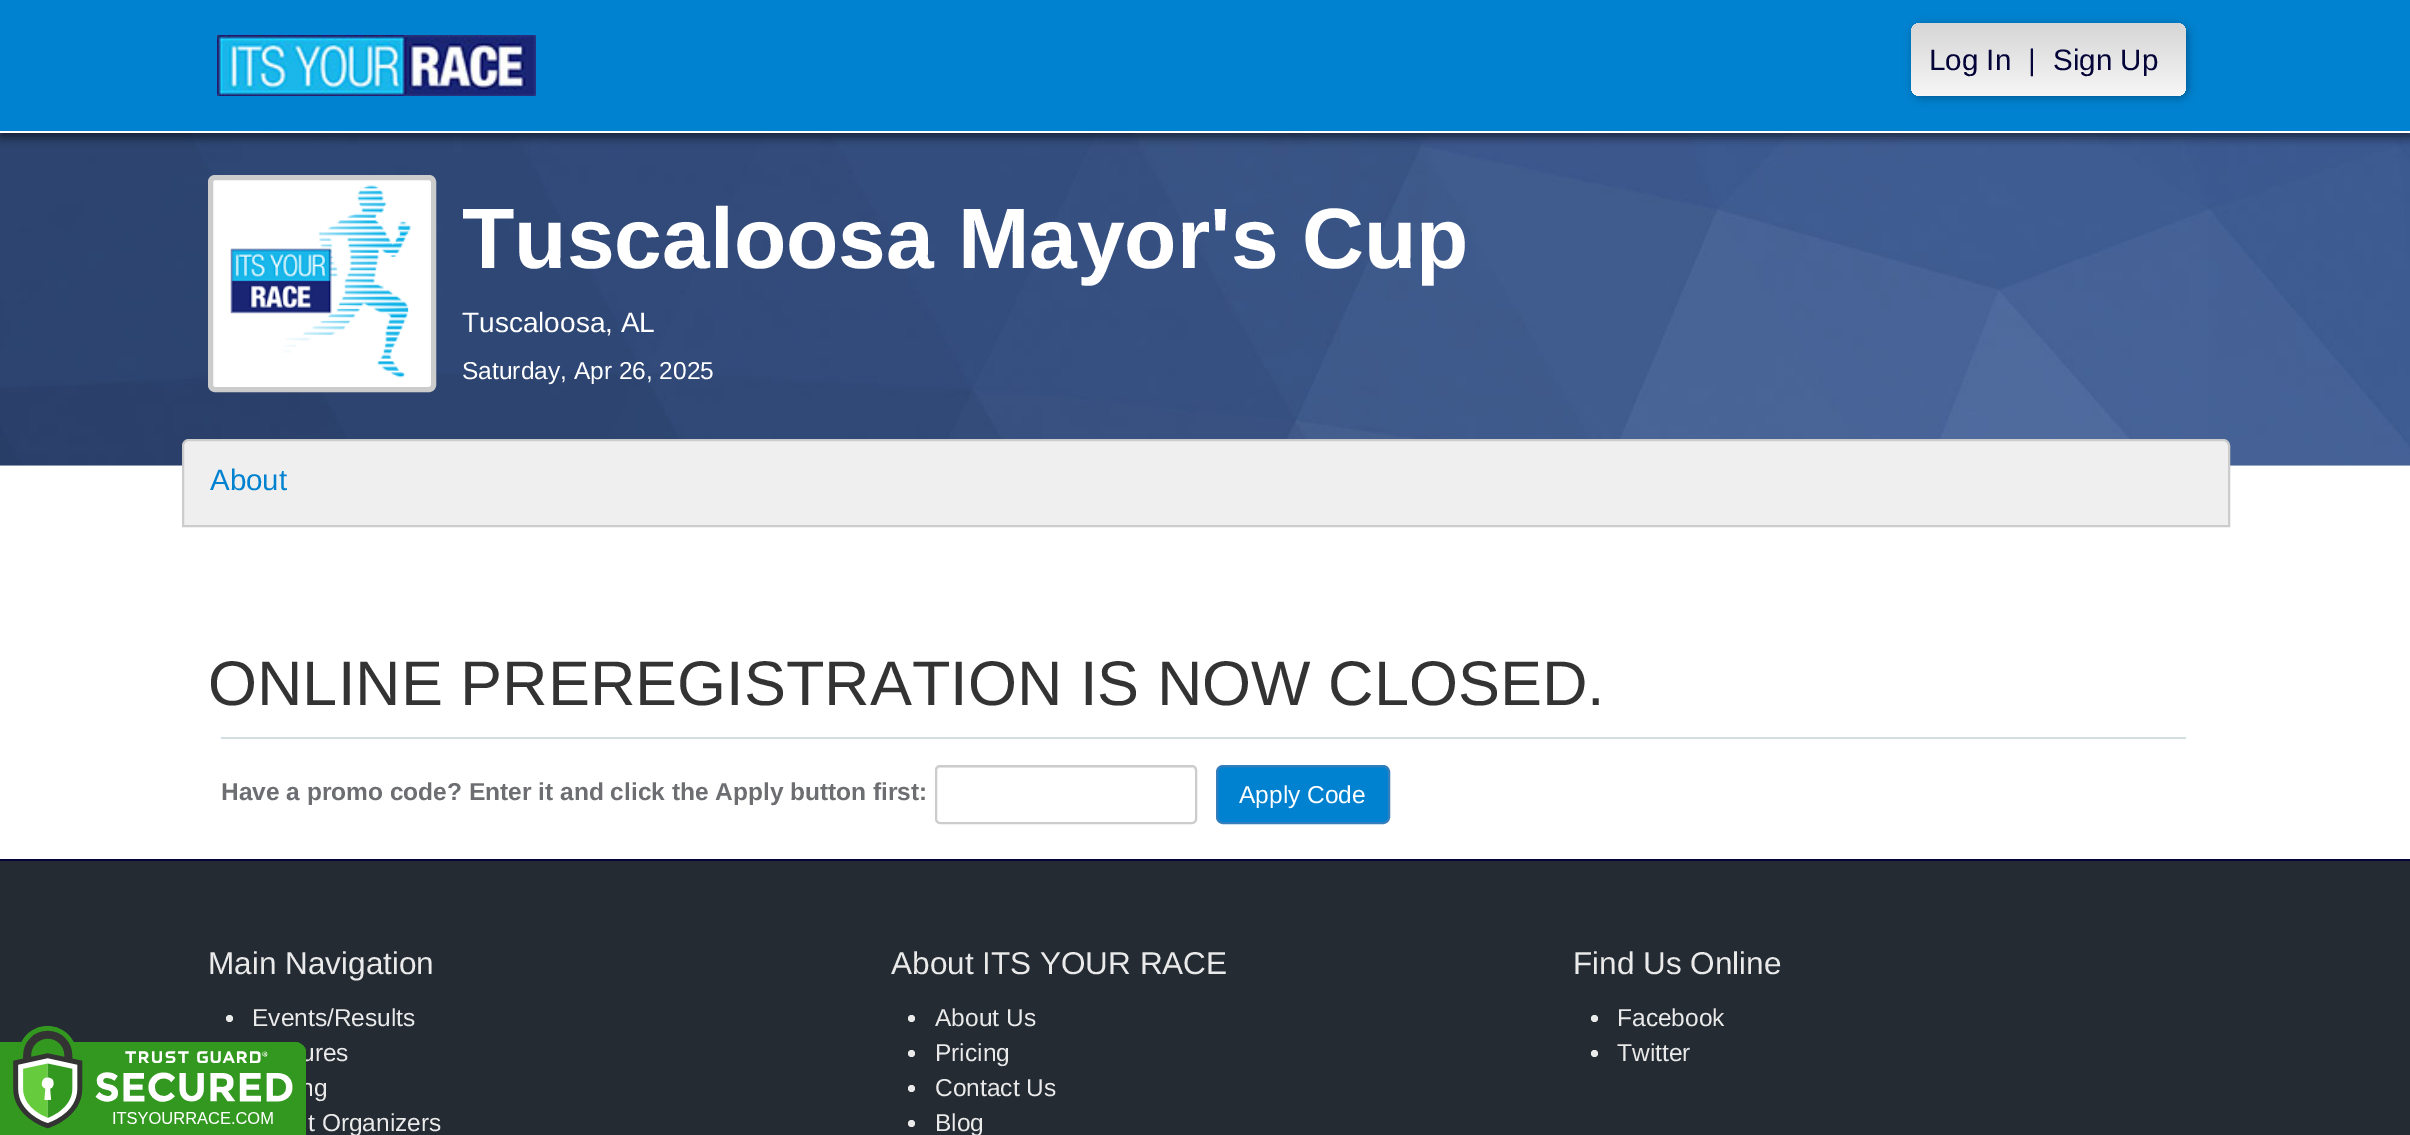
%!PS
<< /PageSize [2410 1135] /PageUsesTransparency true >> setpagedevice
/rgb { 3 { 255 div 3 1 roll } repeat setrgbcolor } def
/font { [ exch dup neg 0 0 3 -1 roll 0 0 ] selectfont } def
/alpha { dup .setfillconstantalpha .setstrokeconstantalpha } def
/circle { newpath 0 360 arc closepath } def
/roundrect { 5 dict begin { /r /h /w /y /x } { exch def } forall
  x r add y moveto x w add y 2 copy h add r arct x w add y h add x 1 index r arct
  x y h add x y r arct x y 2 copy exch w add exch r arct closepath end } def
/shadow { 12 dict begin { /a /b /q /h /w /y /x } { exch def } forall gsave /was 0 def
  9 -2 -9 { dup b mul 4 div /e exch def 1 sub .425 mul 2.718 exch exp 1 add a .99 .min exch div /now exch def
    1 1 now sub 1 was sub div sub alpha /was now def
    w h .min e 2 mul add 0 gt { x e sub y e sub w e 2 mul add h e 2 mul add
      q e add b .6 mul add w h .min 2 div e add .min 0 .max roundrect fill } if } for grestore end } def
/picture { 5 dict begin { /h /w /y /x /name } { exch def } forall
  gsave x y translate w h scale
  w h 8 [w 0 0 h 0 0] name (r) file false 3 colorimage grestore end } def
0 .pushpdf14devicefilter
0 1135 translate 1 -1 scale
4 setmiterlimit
255 255 255 rgb
0 0 2410 1135 rectfill
238 238 238 rgb
0 465 2410 1 rectfill
(img/3.rgb) 0 133 2410 333 picture
0 0 0 rgb
0 5 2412 133 0 4.5 0.5 shadow
0 130 208 rgb
0 0 2410 131 rectfill
255 255 255 rgb
0 131 2410 2 rectfill
(img/2.rgb) 217 35 319 61 picture
0 0 0 rgb
1913 25 275 73 9 4.5 0.3 shadow
gsave 1911 23 275 73 9 roundrect clip newpath
<< /ShadingType 2 /ColorSpace /DeviceRGB /Coords [2048 23 2048 96] /Extend [true true] /Function << /FunctionType 2 /Domain [0 1] /C0 [0.839 0.839 0.839] /C1 [0.965 0.965 0.965] /N 1 >> >> shfill grestore
255 255 255 rgb
210.5 177.5 223 212 4.5 roundrect gsave fill grestore
204 204 204 rgb
5 setlinewidth
stroke
(img/4.rgb) 230 185 181 193 picture
239 239 239 rgb
189 440 moveto 2223 440 lineto 2226.5 440 2229 442.5 2229 446 curveto 2229 526 lineto 183 526 lineto 183 446 lineto 183 442.5 185.5 440 189 440 curveto closepath gsave fill grestore
204 204 204 rgb
2 setlinewidth
stroke
211 222 226 rgb
221 737 1965 2 rectfill
236 236 236 rgb
940 768 moveto 1192 768 lineto 1194 768 1195 770 1195 772 curveto 1195 771 lineto 1195 769 1193 767 1191 767 curveto 940 767 lineto 938 767 936 769 936 771 curveto 936 772 lineto 936 770 938 768 940 768 curveto closepath fill
204 204 204 rgb
936 766 260 57 4 roundrect stroke
0 130 208 rgb
1217 766 172 57 6 roundrect gsave fill grestore
53 126 189 rgb
stroke
36 43 51 rgb
0 861 2410 274 rectfill
4 4 56 rgb
0 859 2410 2 rectfill
234 234 234 rgb
229.5 1018.5 3.5 circle fill
911.5 1018.5 3.5 circle fill
911.5 1053.5 3.5 circle fill
911.5 1088.5 3.5 circle fill
911.5 1123.5 3.5 circle fill
1594.5 1018.5 3.5 circle fill
1594.5 1053.5 3.5 circle fill
/LiberationSans-Regular 29.5 font
4 4 56 rgb
[
  [(Log In) 1929 70]
  [(|) 2028 70]
  [(Sign Up) 2053 70]
] { aload pop moveto show } forall
/LiberationSans-Bold 85.75 font
255 255 255 rgb
462 268 moveto (Tuscaloosa Mayor's Cup) show
/LiberationSans-Regular 28 font
462 332 moveto (Tuscaloosa, AL) show
/LiberationSans-Regular 24.5 font
462 379 moveto (Saturday, Apr 26, 2025) show
/LiberationSans-Regular 29.5 font
0 130 208 rgb
210 490 moveto (About) show
/LiberationSans-Regular 63 font
51 51 51 rgb
208 705 moveto (ONLINE PREREGISTRATION IS NOW CLOSED.) show
/LiberationSans-Bold 24.5 font
109 110 113 rgb
221 800 moveto (Have a promo code? Enter it and click the Apply button first:) show
/LiberationSans-Regular 24.5 font
255 255 255 rgb
1239 803 moveto (Apply Code) show
/LiberationSans-Regular 31.5 font
234 234 234 rgb
208 974 moveto (Main Navigation) show
/LiberationSans-Regular 24.5 font
[
  [(Events/Results) 252 1026]
  [(ures) 301 1061]
  [(ng) 300 1096]
] { aload pop moveto show } forall
(img/1.rgb) 0 1026 306 109 picture
308 1131 moveto (t Organizers) show
/LiberationSans-Regular 31.5 font
891 974 moveto (About ITS YOUR RACE) show
/LiberationSans-Regular 24.5 font
[
  [(About Us) 935 1026]
  [(Pricing) 935 1061]
  [(Contact Us) 935 1096]
  [(Blog) 935 1131]
] { aload pop moveto show } forall
/LiberationSans-Regular 31.5 font
1573 974 moveto (Find Us Online) show
/LiberationSans-Regular 24.5 font
1617 1026 moveto (Facebook) show
1617 1061 moveto (Twitter) show
.poppdf14devicefilter showpage
